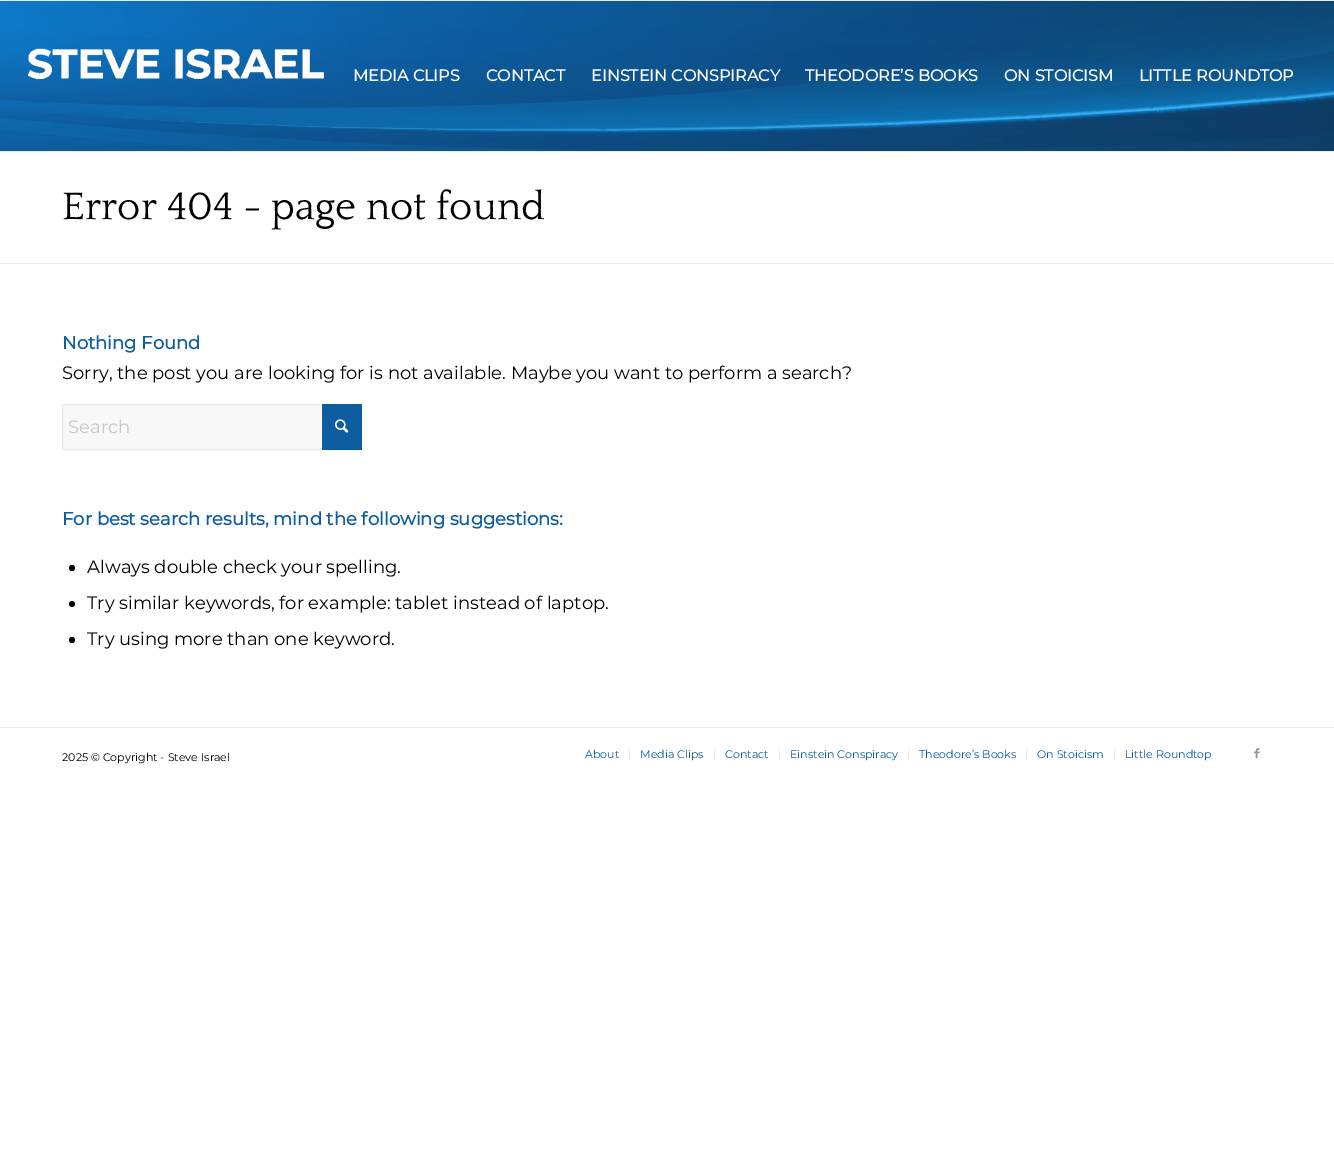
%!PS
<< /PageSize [1334 1163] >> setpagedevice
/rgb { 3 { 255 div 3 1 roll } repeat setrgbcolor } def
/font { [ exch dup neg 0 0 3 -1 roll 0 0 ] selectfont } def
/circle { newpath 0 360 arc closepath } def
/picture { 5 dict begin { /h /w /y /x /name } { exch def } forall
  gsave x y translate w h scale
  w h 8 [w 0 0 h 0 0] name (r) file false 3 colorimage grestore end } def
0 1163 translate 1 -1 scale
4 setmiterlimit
255 255 255 rgb
0 0 1334 1163 rectfill
(img/1.rgb) 0 1 1334 150 picture
235 235 235 rgb
0 0 1334 1 rectfill
0 151 1334 1 rectfill
(img/2.rgb) 28 48 296 31 picture
0 263 1334 1 rectfill
248 248 248 rgb
63 405 259 44 rectfill
235 235 235 rgb
62.5 404.5 299 45 rectstroke
15 93 161 rgb
322 404 40 46 rectfill
(img/3.rgb) 335 419 14 14 picture
0 0 0 rgb
72 568 3 circle fill
72 604 3 circle fill
72 640 3 circle fill
[
  [0 727 1334 1 235 235 235]
  [629 749 1 10 235 235 235]
  [714 749 1 10 235 235 235]
  [779 749 1 10 235 235 235]
  [908 749 1 10 235 235 235]
  [1026 749 1 10 235 235 235]
  [1114 749 1 10 235 235 235]
] { aload pop rgb rectfill } forall
(img/4.rgb) 1254 748 6 11 picture
/Montserrat-Bold 16 font
255 255 255 rgb
[
  [(MEDIA CLIPS) 353 81]
  [(CONTACT) 486 81]
  [(EINSTEIN CONSPIRACY) 591 81]
  [(THEODORE’S BOOKS) 805 81]
  [(ON STOICISM) 1004 81]
  [(LITTLE ROUNDTOP) 1139 81]
] { aload pop moveto show } forall
/Quattrocento-Regular 40 font
0 0 0 rgb
62 219 moveto (Error 404 - page not found) show
/Montserrat-Bold 18 font
15 93 161 rgb
62 349 moveto (Nothing Found) show
/Montserrat-Thin 18 font
0 0 0 rgb
62 379 moveto (Sorry, the post you are looking for is not available. Maybe you want to perform a search?) show
199 199 199 rgb
68 433 moveto (Search) show
/Montserrat-Bold 18 font
15 93 161 rgb
62 525 moveto (For best search results, mind the following suggestions:) show
/Montserrat-Thin 18 font
0 0 0 rgb
[
  [(Always double check your spelling.) 87 573]
  [(Try similar keywords, for example: tablet instead of laptop.) 87 609]
  [(Try using more than one keyword.) 87 645]
] { aload pop moveto show } forall
/Montserrat-Thin 11 font
62 761 moveto (2025 © Copyright - Steve Israel) show
15 93 161 rgb
[
  [(About) 585 758]
  [(Media Clips) 640 758]
  [(Contact) 725 758]
  [(Einstein Conspiracy) 790 758]
  [(Theodore’s Books) 919 758]
  [(On Stoicism) 1037 758]
  [(Little Roundtop) 1125 758]
] { aload pop moveto show } forall
showpage
